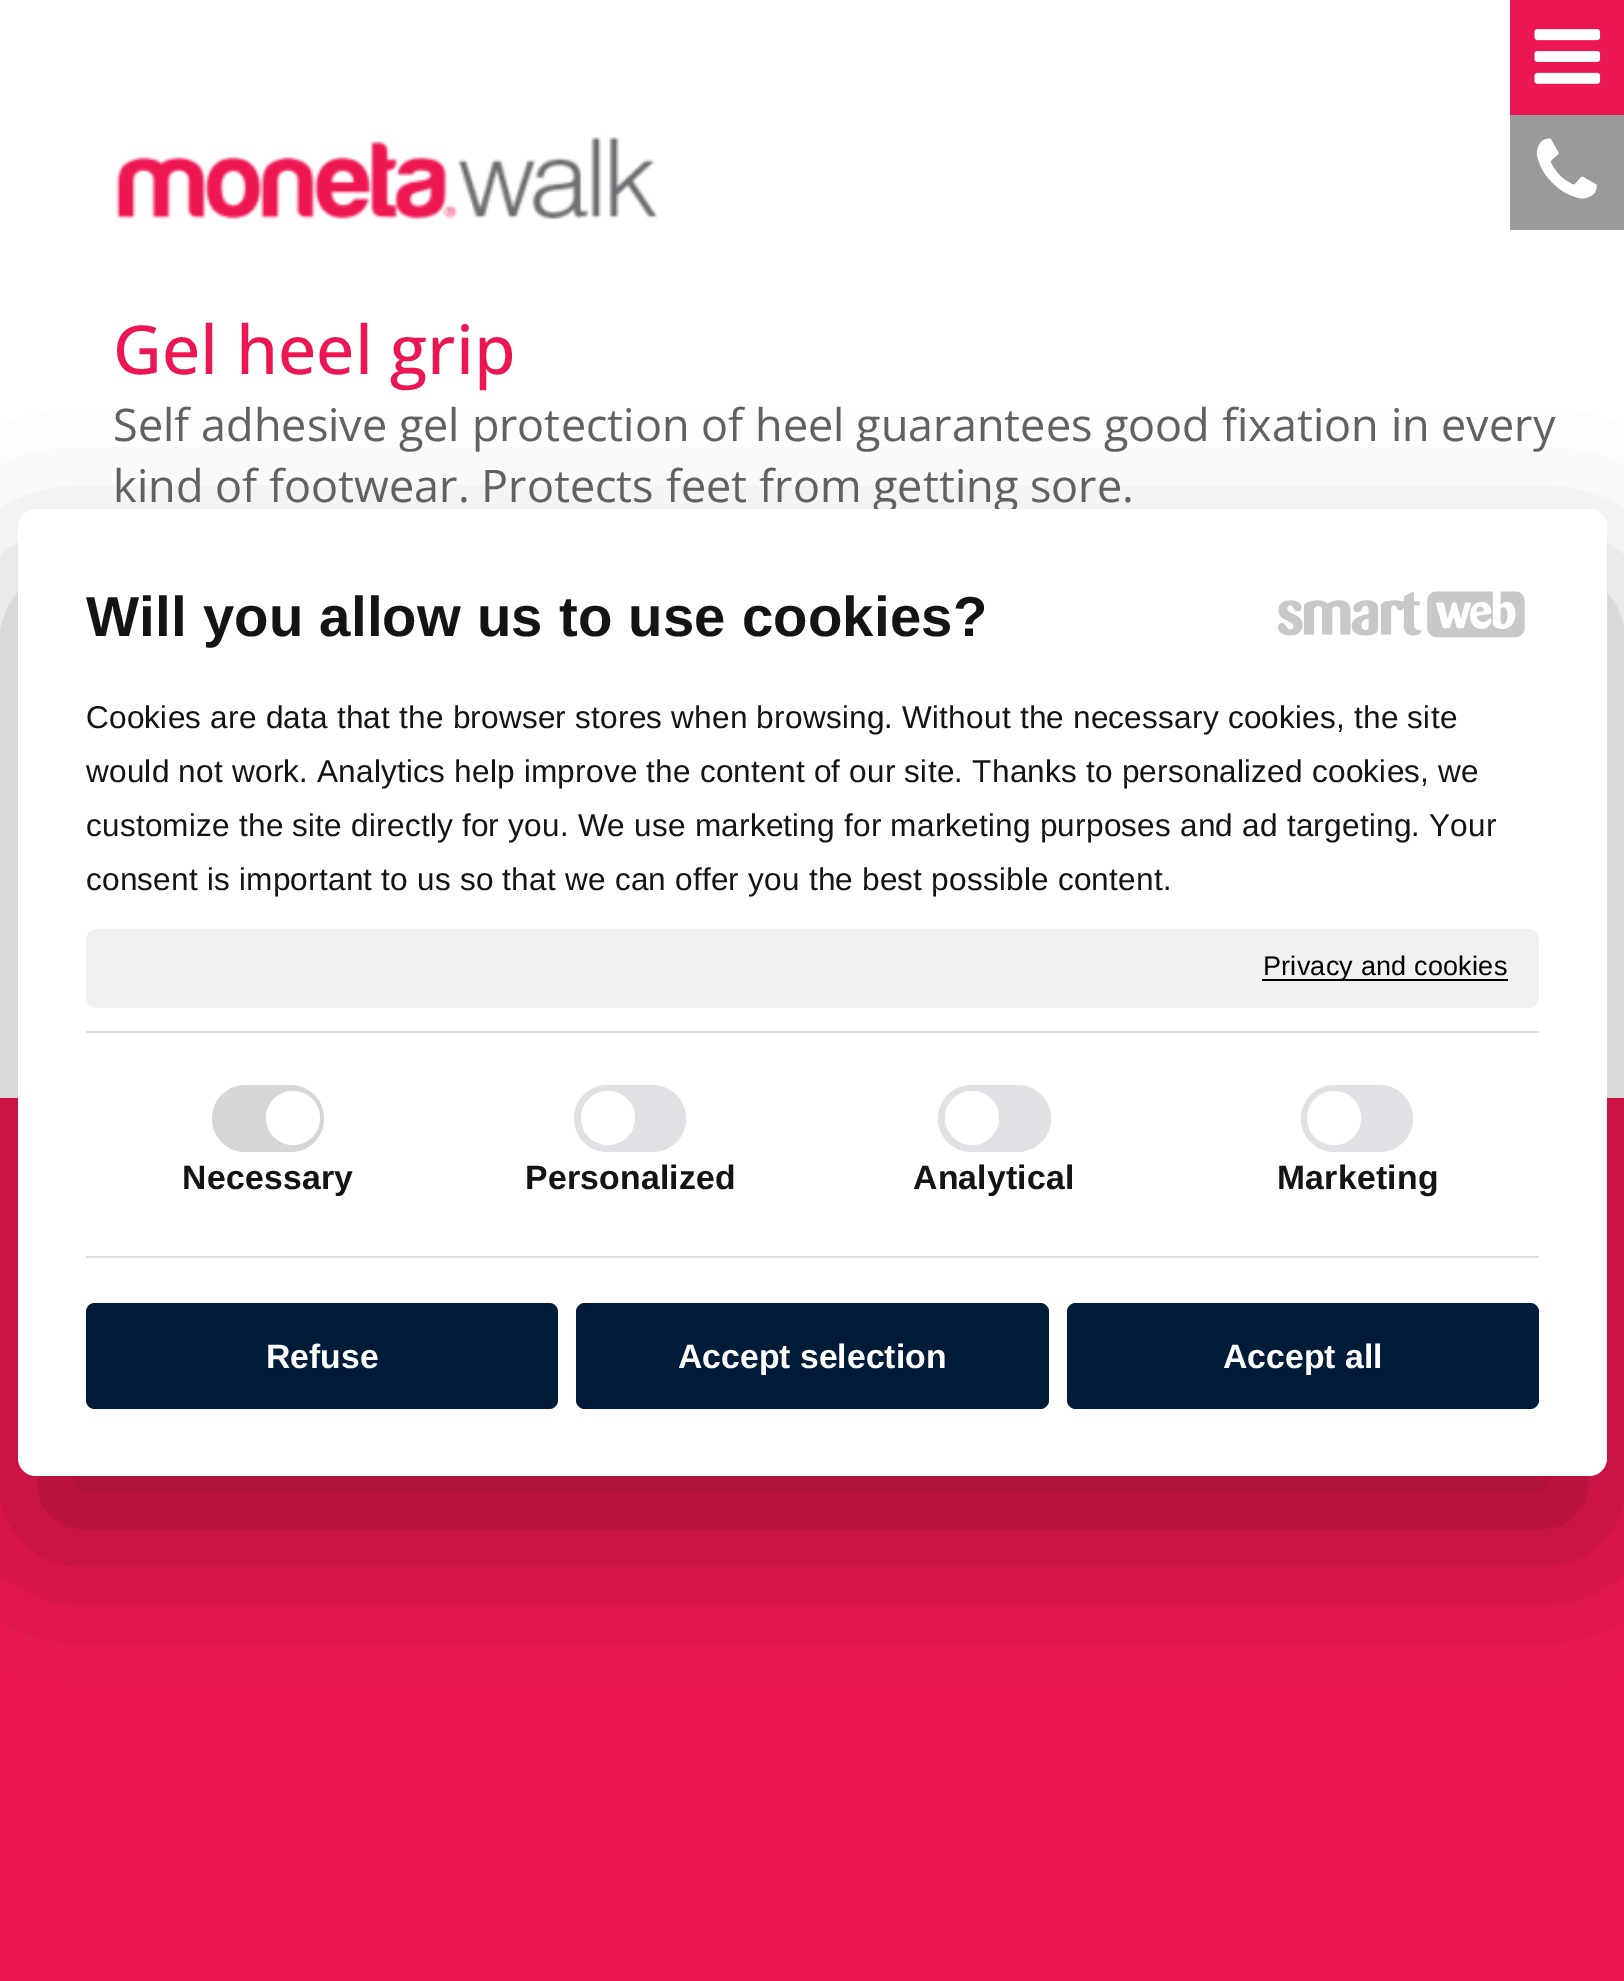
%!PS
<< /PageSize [1624 1981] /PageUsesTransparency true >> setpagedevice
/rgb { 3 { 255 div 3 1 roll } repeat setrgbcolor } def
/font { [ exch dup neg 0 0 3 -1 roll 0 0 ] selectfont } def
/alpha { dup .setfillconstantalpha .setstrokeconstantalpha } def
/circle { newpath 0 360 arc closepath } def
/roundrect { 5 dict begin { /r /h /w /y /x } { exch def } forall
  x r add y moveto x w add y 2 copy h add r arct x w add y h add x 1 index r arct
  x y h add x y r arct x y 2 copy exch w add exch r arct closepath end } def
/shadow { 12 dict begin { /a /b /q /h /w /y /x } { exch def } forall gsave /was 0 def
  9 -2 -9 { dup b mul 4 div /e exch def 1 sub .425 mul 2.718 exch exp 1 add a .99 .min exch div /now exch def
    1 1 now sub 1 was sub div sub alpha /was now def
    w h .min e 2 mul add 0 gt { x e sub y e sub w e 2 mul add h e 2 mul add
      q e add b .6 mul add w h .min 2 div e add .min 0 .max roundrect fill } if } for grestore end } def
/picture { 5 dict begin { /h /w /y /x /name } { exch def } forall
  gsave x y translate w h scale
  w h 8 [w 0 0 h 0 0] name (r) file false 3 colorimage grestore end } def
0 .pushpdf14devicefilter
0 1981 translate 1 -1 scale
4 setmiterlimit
236 23 82 rgb
0 0 1624 1981 rectfill
255 255 255 rgb
0 0 1624 1098 rectfill
236 23 82 rgb
1510 0 114 115 rectfill
(img/1.rgb) 1534 29 67 55 picture
154 154 154 rgb
1510 115 114 115 rectfill
(img/2.rgb) 1536 138 61 61 picture
(img/3.rgb) 116 136 542 85 picture
0 0 0 rgb
18 581 1589 967 18 76.5 0.3 shadow
/OpenSans-Medium 67.5 font
236 23 82 rgb
113 374 moveto (Gel heel grip) show
/OpenSans-Regular 45 font
97 97 97 rgb
113 441 moveto (Self adhesive gel protection of heel guarantees good fixation in every) show
113 502 moveto (kind of footwear. Protects feet from getting sore.) show
255 255 255 rgb
18 509 1589 967 18 roundrect fill
/LiberationSans-Bold 56.25 font
20 20 20 rgb
86 636 moveto 0.23 0 (Will you allow us to use cookies?) ashow
(img/4.rgb) 1277 592 144 44 picture
(img/5.rgb) 1427 591 98 47 picture
/LiberationSans-Regular 31.5 font
86 728 moveto 0.23 0 (Cookies are data that the browser stores when browsing. Without the necessary cookies, the site) ashow
86 782 moveto 0.23 0 (would not work. Analytics help improve the content of our site. Thanks to personalized cookies, we) ashow
86 836 moveto 0.23 0 (customize the site directly for you. We use marketing for marketing purposes and ad targeting. Your) ashow
86 890 moveto 0.23 0 (consent is important to us so that we can offer you the best possible content.) ashow
241 241 241 rgb
86 929 1453 79 11 roundrect fill
0 0 0 rgb
1262 979 246 2 rectfill
/LiberationSans-Regular 27 font
1263 975 moveto 0.23 0 (Privacy and cookies) ashow
221 221 221 rgb
86 1031 1453 2 rectfill
86 1256 1453 2 rectfill
214 214 214 rgb
212 1085 112 67 33.5 roundrect fill
255 255 255 rgb
293 1118 27 circle fill
/LiberationSans-Bold 33.75 font
20 20 20 rgb
182 1189 moveto 0.23 0 (Necessary) ashow
223 225 228 rgb
574 1085 112 67 33.5 roundrect fill
255 255 255 rgb
608 1118 27 circle fill
20 20 20 rgb
525 1189 moveto 0.23 0 (Personalized) ashow
223 225 228 rgb
938 1085 113 67 33.5 roundrect fill
255 255 255 rgb
972 1118 27 circle fill
20 20 20 rgb
913 1189 moveto 0.23 0 (Analytical) ashow
223 225 228 rgb
1301 1085 112 67 33.5 roundrect fill
255 255 255 rgb
1334 1118 27 circle fill
20 20 20 rgb
1277 1189 moveto 0.23 0 (Marketing) ashow
1 28 56 rgb
86 1303 472 106 9 roundrect fill
255 255 255 rgb
266 1368 moveto (Refuse) show
1 28 56 rgb
576 1303 473 106 9 roundrect fill
255 255 255 rgb
678 1368 moveto (Accept selection) show
1 28 56 rgb
1067 1303 472 106 9 roundrect fill
255 255 255 rgb
1223 1368 moveto (Accept all) show
.poppdf14devicefilter showpage
